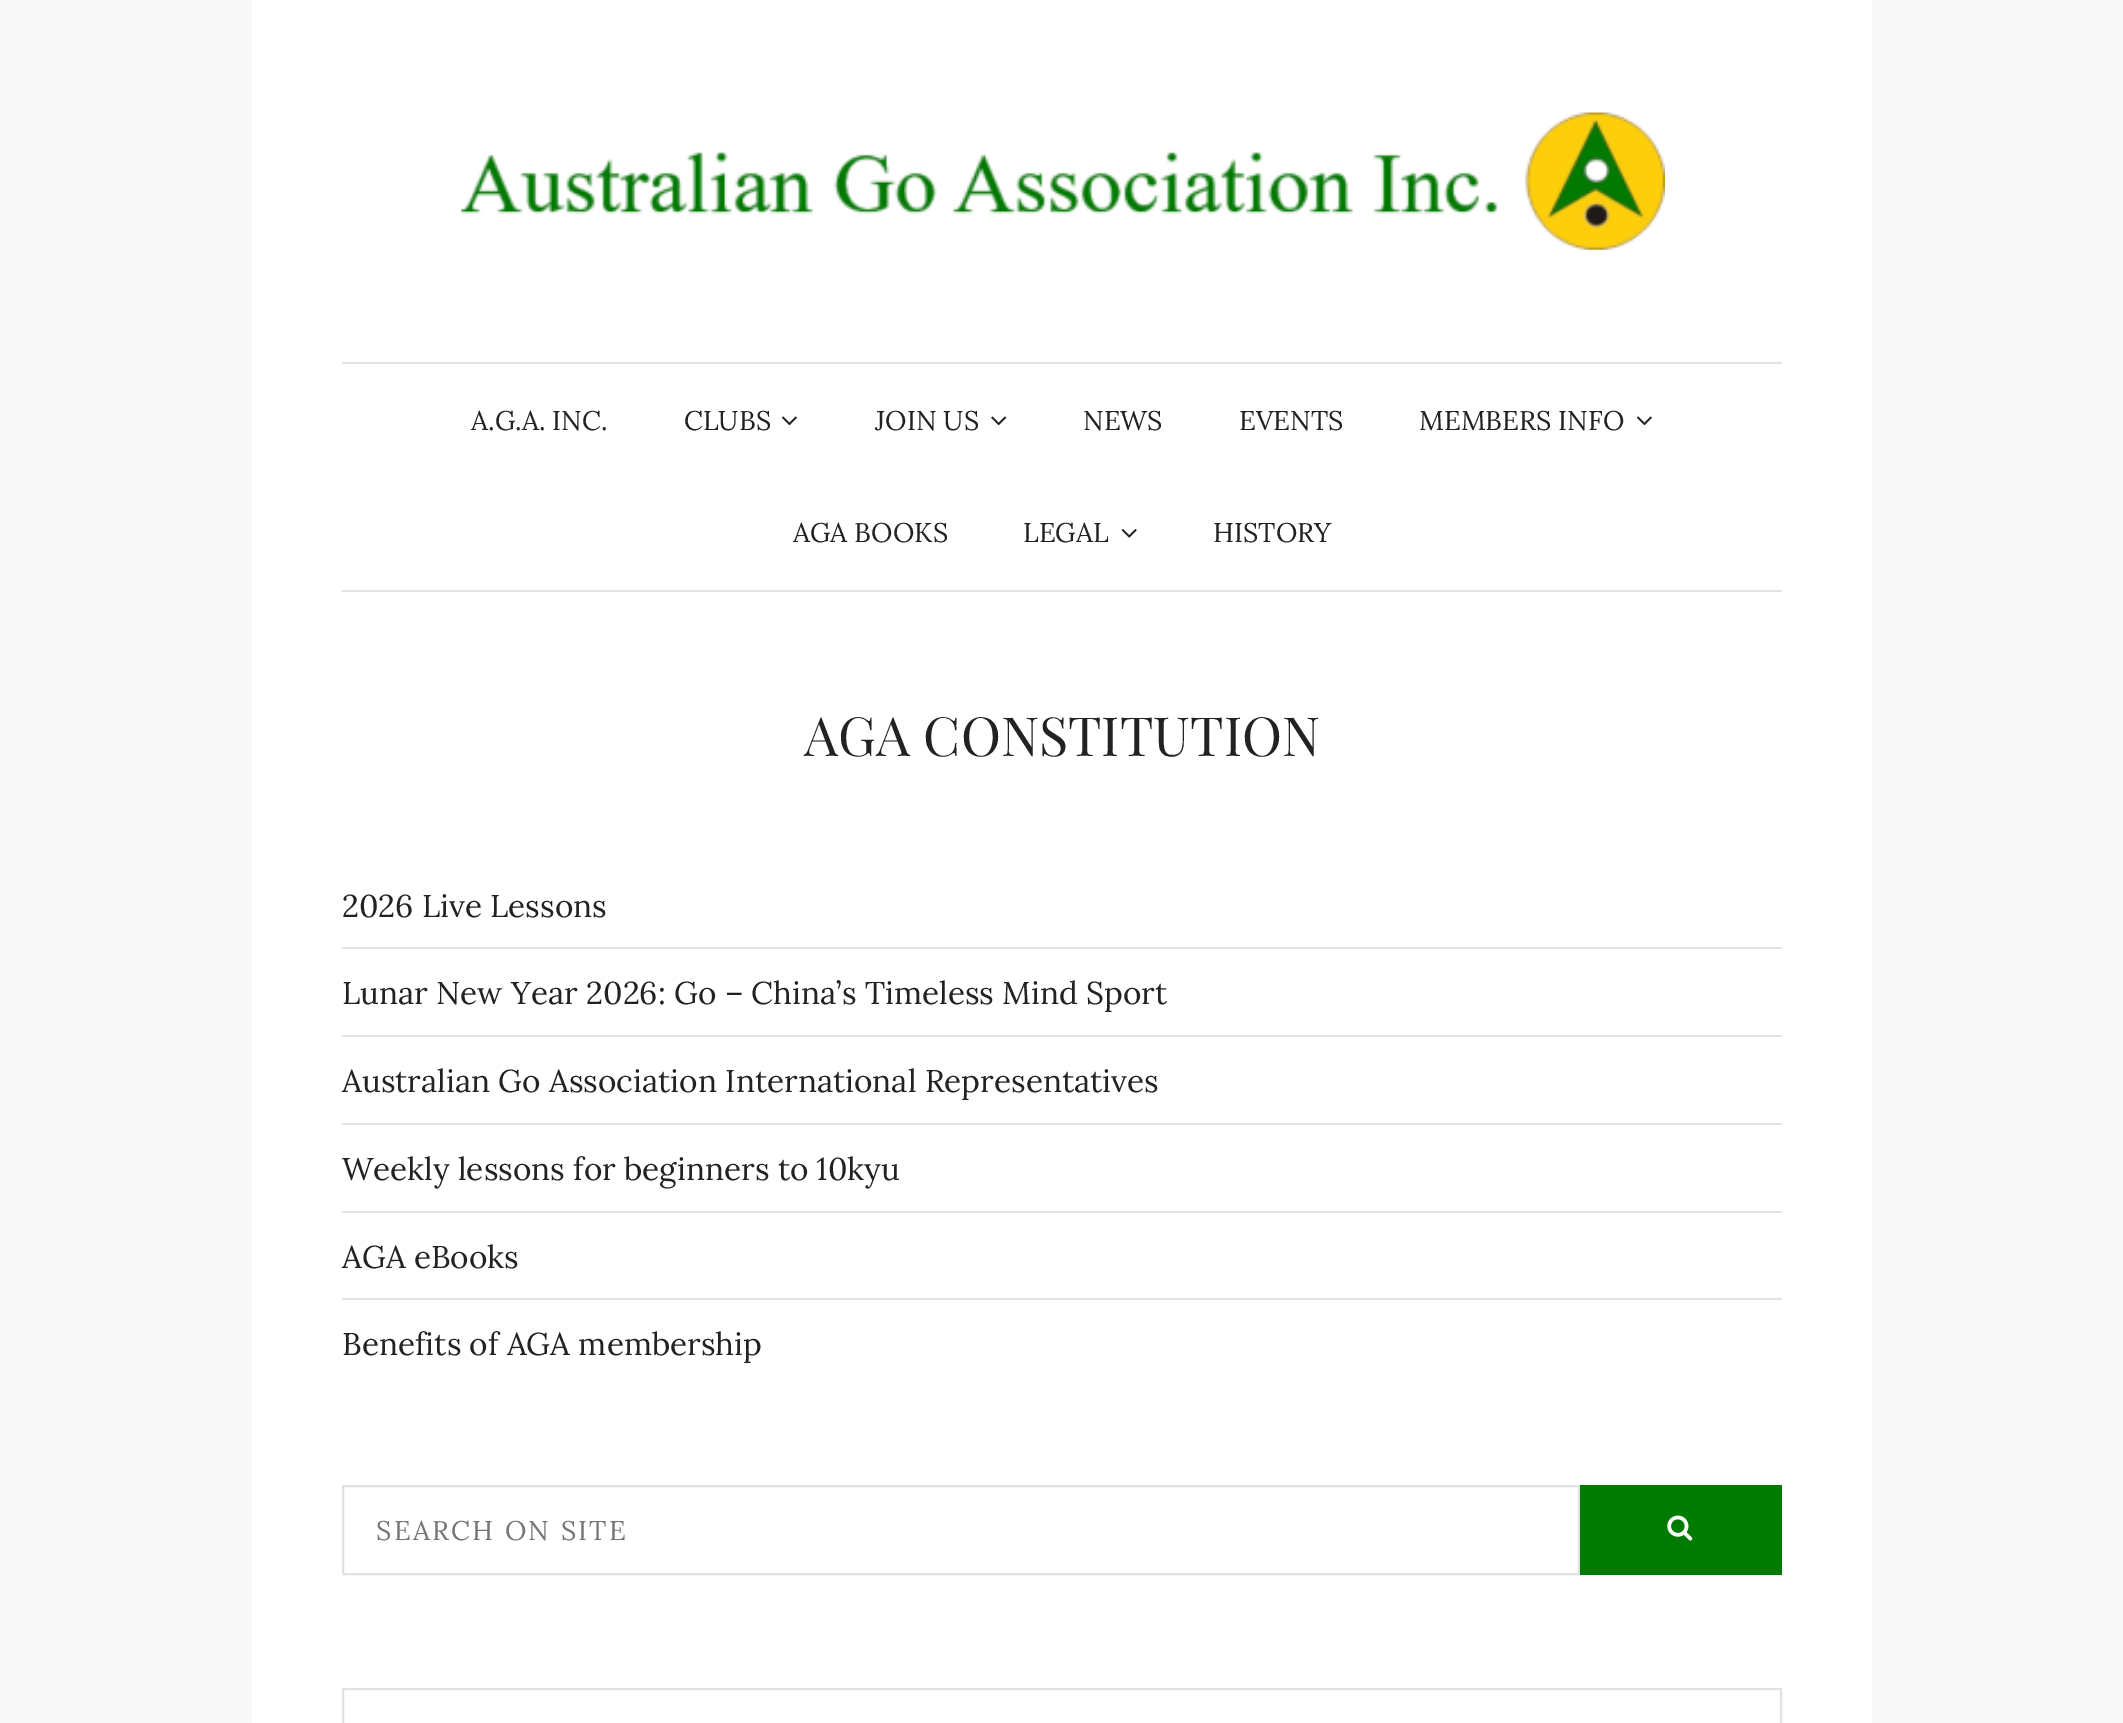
%!PS
<< /PageSize [2123 1723] >> setpagedevice
/rgb { 3 { 255 div 3 1 roll } repeat setrgbcolor } def
/font { [ exch dup neg 0 0 3 -1 roll 0 0 ] selectfont } def
/picture { 5 dict begin { /h /w /y /x /name } { exch def } forall
  gsave x y translate w h scale
  w h 8 [w 0 0 h 0 0] name (r) file false 3 colorimage grestore end } def
0 1723 translate 1 -1 scale
4 setmiterlimit
248 248 248 rgb
0 0 2123 1723 rectfill
255 255 255 rgb
252 0 1620 1723 rectfill
(img/1.rgb) 461 112 1204 138 picture
226 226 226 rgb
342 362 1440 2 rectfill
342 590 1440 2 rectfill
(img/2.rgb) 782 416 15 10 picture
(img/3.rgb) 991 416 16 10 picture
(img/2.rgb) 1637 416 15 10 picture
(img/4.rgb) 1121 529 16 9 picture
[
  [342 947 1440 2 226 226 226]
  [342 1035 1440 2 226 226 226]
  [342 1123 1440 2 226 226 226]
  [342 1211 1440 2 226 226 226]
  [342 1298 1440 2 226 226 226]
] { aload pop rgb rectfill } forall
2 setlinewidth
343 1486 1236 88 rectstroke
0 122 0 rgb
1580 1485 202 90 rectfill
(img/5.rgb) 1667 1515 26 26 picture
226 226 226 rgb
343 1689 1438 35 rectstroke
/Lora-Regular 27 font
34 34 34 rgb
[
  [(A.G.A. INC.) 471 430]
  [(CLUBS) 684 430]
  [(JOIN US) 875 430]
  [(NEWS) 1083 430]
  [(EVENTS) 1239 430]
  [(MEMBERS INFO) 1419 430]
  [(AGA BOOKS) 793 542]
  [(LEGAL) 1023 542]
  [(HISTORY) 1213 542]
] { aload pop moveto show } forall
/PlayfairDisplay-Regular 54 font
804 756 moveto (AGA CONSTITUTION) show
/Lora-Regular 31.5 font
[
  [(2026 Live Lessons) 342 917]
  [(Lunar New Year 2026: Go – China’s Timeless Mind Sport) 342 1004]
  [(Australian Go Association International Representatives) 342 1092]
  [(Weekly lessons for beginners to 10kyu) 342 1180]
  [(AGA eBooks) 342 1268]
  [(Benefits of AGA membership) 342 1355]
] { aload pop moveto show } forall
/Lora-Regular 27 font
117 117 117 rgb
376 1540 moveto 2.25 0 (SEARCH ON SITE) ashow
showpage
